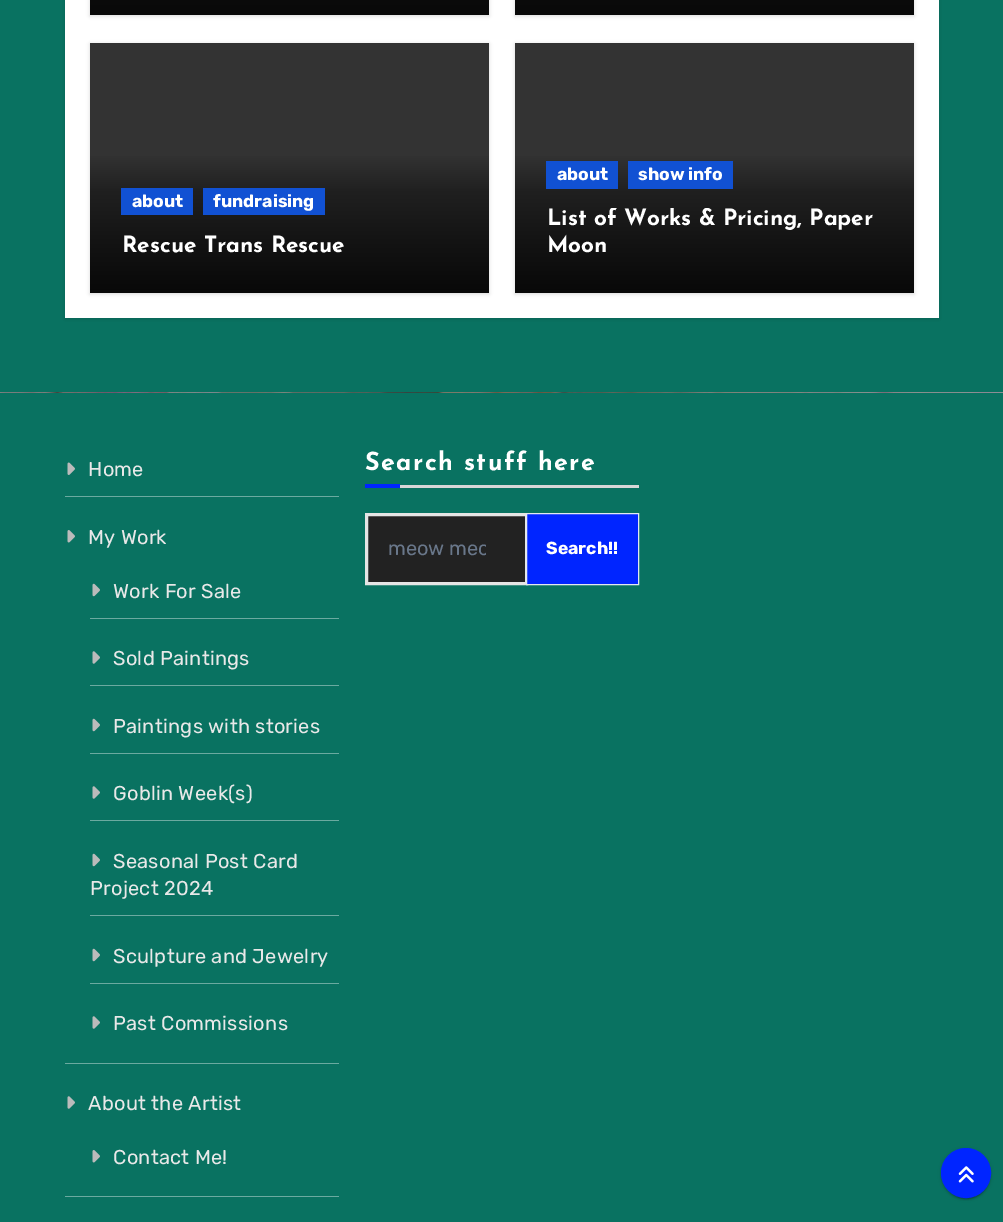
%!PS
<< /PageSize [1003 1222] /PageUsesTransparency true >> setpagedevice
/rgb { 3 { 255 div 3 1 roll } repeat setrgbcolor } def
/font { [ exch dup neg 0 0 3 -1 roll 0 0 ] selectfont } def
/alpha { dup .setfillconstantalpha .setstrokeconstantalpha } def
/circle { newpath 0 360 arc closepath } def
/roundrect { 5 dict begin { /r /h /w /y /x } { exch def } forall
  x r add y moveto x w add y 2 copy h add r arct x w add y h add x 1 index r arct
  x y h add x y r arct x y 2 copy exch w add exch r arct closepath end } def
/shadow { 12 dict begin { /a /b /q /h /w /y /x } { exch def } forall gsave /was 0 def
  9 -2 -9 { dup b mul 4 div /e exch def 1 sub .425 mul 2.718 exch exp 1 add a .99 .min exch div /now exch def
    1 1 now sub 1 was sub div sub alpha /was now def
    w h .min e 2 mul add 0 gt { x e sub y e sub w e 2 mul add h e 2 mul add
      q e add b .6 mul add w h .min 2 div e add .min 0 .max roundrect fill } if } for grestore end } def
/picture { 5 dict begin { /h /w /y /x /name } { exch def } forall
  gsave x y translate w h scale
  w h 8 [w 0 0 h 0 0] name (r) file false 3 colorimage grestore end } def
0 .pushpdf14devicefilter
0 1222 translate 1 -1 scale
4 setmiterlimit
9 114 97 rgb
0 0 1003 1222 rectfill
0 0 0 rgb
65 -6 874 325 0 2 0.15 shadow
255 255 255 rgb
65 0 874 318 rectfill
0 0 0 rgb
90 -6 399 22 0 2 0.15 shadow
gsave 90 0 moveto 489 0 lineto 489 15 lineto 90 15 lineto closepath clip newpath
<< /ShadingType 2 /ColorSpace /DeviceRGB /Coords [289 -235 289 15] /Extend [true true] /Function << /FunctionType 3 /Domain [0 1] /Functions [<< /FunctionType 2 /Domain [0 1] /C0 [0.2 0.2 0.2] /C1 [0.2 0.2 0.2] /N 1 >> << /FunctionType 2 /Domain [0 1] /C0 [0.2 0.2 0.2] /C1 [0.122 0.122 0.122] /N 1 >> << /FunctionType 2 /Domain [0 1] /C0 [0.122 0.122 0.122] /C1 [0.031 0.031 0.031] /N 1 >>] /Bounds [0.45 0.6] /Encode [0 1 0 1 0 1] >> >> shfill grestore
515 -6 399 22 0 2 0.15 shadow
gsave 515 0 moveto 914 0 lineto 914 15 lineto 515 15 lineto closepath clip newpath
<< /ShadingType 2 /ColorSpace /DeviceRGB /Coords [714 -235 714 15] /Extend [true true] /Function << /FunctionType 3 /Domain [0 1] /Functions [<< /FunctionType 2 /Domain [0 1] /C0 [0.2 0.2 0.2] /C1 [0.2 0.2 0.2] /N 1 >> << /FunctionType 2 /Domain [0 1] /C0 [0.2 0.2 0.2] /C1 [0.122 0.122 0.122] /N 1 >> << /FunctionType 2 /Domain [0 1] /C0 [0.122 0.122 0.122] /C1 [0.031 0.031 0.031] /N 1 >>] /Bounds [0.45 0.6] /Encode [0 1 0 1 0 1] >> >> shfill grestore
90 44 399 250 0 2 0.15 shadow
gsave 90 43 moveto 489 43 lineto 489 293 lineto 90 293 lineto closepath clip newpath
<< /ShadingType 2 /ColorSpace /DeviceRGB /Coords [289 42 289 293] /Extend [true true] /Function << /FunctionType 3 /Domain [0 1] /Functions [<< /FunctionType 2 /Domain [0 1] /C0 [0.2 0.2 0.2] /C1 [0.2 0.2 0.2] /N 1 >> << /FunctionType 2 /Domain [0 1] /C0 [0.2 0.2 0.2] /C1 [0.122 0.122 0.122] /N 1 >> << /FunctionType 2 /Domain [0 1] /C0 [0.122 0.122 0.122] /C1 [0.031 0.031 0.031] /N 1 >>] /Bounds [0.45 0.6] /Encode [0 1 0 1 0 1] >> >> shfill grestore
17 81 211 rgb
121 188 72 27 rectfill
203 188 122 27 rectfill
0 0 0 rgb
515 44 399 250 0 2 0.15 shadow
gsave 515 43 moveto 914 43 lineto 914 293 lineto 515 293 lineto closepath clip newpath
<< /ShadingType 2 /ColorSpace /DeviceRGB /Coords [714 42 714 293] /Extend [true true] /Function << /FunctionType 3 /Domain [0 1] /Functions [<< /FunctionType 2 /Domain [0 1] /C0 [0.2 0.2 0.2] /C1 [0.2 0.2 0.2] /N 1 >> << /FunctionType 2 /Domain [0 1] /C0 [0.2 0.2 0.2] /C1 [0.122 0.122 0.122] /N 1 >> << /FunctionType 2 /Domain [0 1] /C0 [0.122 0.122 0.122] /C1 [0.031 0.031 0.031] /N 1 >>] /Bounds [0.45 0.6] /Encode [0 1 0 1 0 1] >> >> shfill grestore
17 81 211 rgb
546 161 72 28 rectfill
628 161 105 28 rectfill
(img/1.rgb) 0 392 1003 1 picture
107 170 160 rgb
65 496 274 1 rectfill
(img/2.rgb) 67 462 8 13 picture
65 1063 274 1 rectfill
(img/3.rgb) 67 530 8 13 picture
90 618 249 1 rectfill
(img/4.rgb) 92 583 8 14 picture
90 685 249 1 rectfill
(img/5.rgb) 92 651 8 13 picture
90 753 249 1 rectfill
(img/4.rgb) 92 718 8 14 picture
90 820 249 1 rectfill
(img/5.rgb) 92 786 8 13 picture
90 915 249 1 rectfill
(img/4.rgb) 92 853 8 14 picture
90 983 249 1 rectfill
(img/4.rgb) 92 948 8 14 picture
(img/5.rgb) 92 1016 8 13 picture
65 1196 274 1 rectfill
(img/5.rgb) 67 1096 8 13 picture
(img/3.rgb) 92 1150 8 13 picture
215 215 215 rgb
400 485 239 3 rectfill
0 37 255 rgb
365 484 35 4 rectfill
34 34 34 rgb
366.5 514.5 moveto 526.5 514.5 lineto 526.5 583.5 lineto 366.5 583.5 lineto closepath gsave fill grestore
229 229 229 rgb
3 setlinewidth
stroke
0 37 255 rgb
526.5 513.5 moveto 638.5 513.5 lineto 638.5 584.5 lineto 526.5 584.5 lineto closepath gsave fill grestore
226 232 240 rgb
1 setlinewidth
stroke
0 0 0 rgb
941 1149 50 50 25 3 0.12 shadow
944 1154 45 45 22.5 0.5 0.2 shadow
941 1150 50 50 25 1 0.14 shadow
0 37 255 rgb
966 1173 23.5 circle gsave fill grestore
3 setlinewidth
stroke
(img/6.rgb) 958 1166 16 17 picture
/Rubik-Bold 17.5 font
255 255 255 rgb
132 207 moveto (about) show
213 207 moveto (fundraising) show
/JosefinSans-Bold 22.5 font
122 252 moveto (Rescue Trans Rescue) show
/Rubik-Bold 17.5 font
557 180 moveto (about) show
638 180 moveto (show info) show
gsave
546 208 337 53 rectclip
/JosefinSans-Bold 22.5 font
547 225 moveto (List of Works & Pricing, Paper) show
grestore
/JosefinSans-Bold 22.5 font
547 252 moveto (Moon) show
/Rubik-Light 20 font
232 232 232 rgb
88 476 moveto 0.25 0 (Home) ashow
88 544 moveto 0.25 0 (My Work) ashow
113 598 moveto 0.25 0 (Work For Sale) ashow
113 665 moveto 0.25 0 (Sold Paintings) ashow
113 733 moveto 0.25 0 (Paintings with stories) ashow
113 800 moveto 0.25 0 (Goblin Week\(s\)) ashow
113 868 moveto 0.25 0 (Seasonal Post Card) ashow
90 895 moveto 0.25 0 (Project 2024) ashow
113 963 moveto 0.25 0 (Sculpture and Jewelry) ashow
113 1030 moveto 0.25 0 (Past Commissions) ashow
88 1110 moveto 0.25 0 (About the Artist) ashow
113 1164 moveto 0.25 0 (Contact Me!) ashow
/JosefinSans-Bold 25 font
255 255 255 rgb
365 470 moveto 1.4 0 (Search stuff here) ashow
gsave
388 536 98 24 rectclip
/Rubik-Light 20 font
105 119 138 rgb
388 555 moveto (meow meo) show
grestore
/Rubik-Bold 17.5 font
546 554 moveto (Search!!) show
.poppdf14devicefilter showpage
